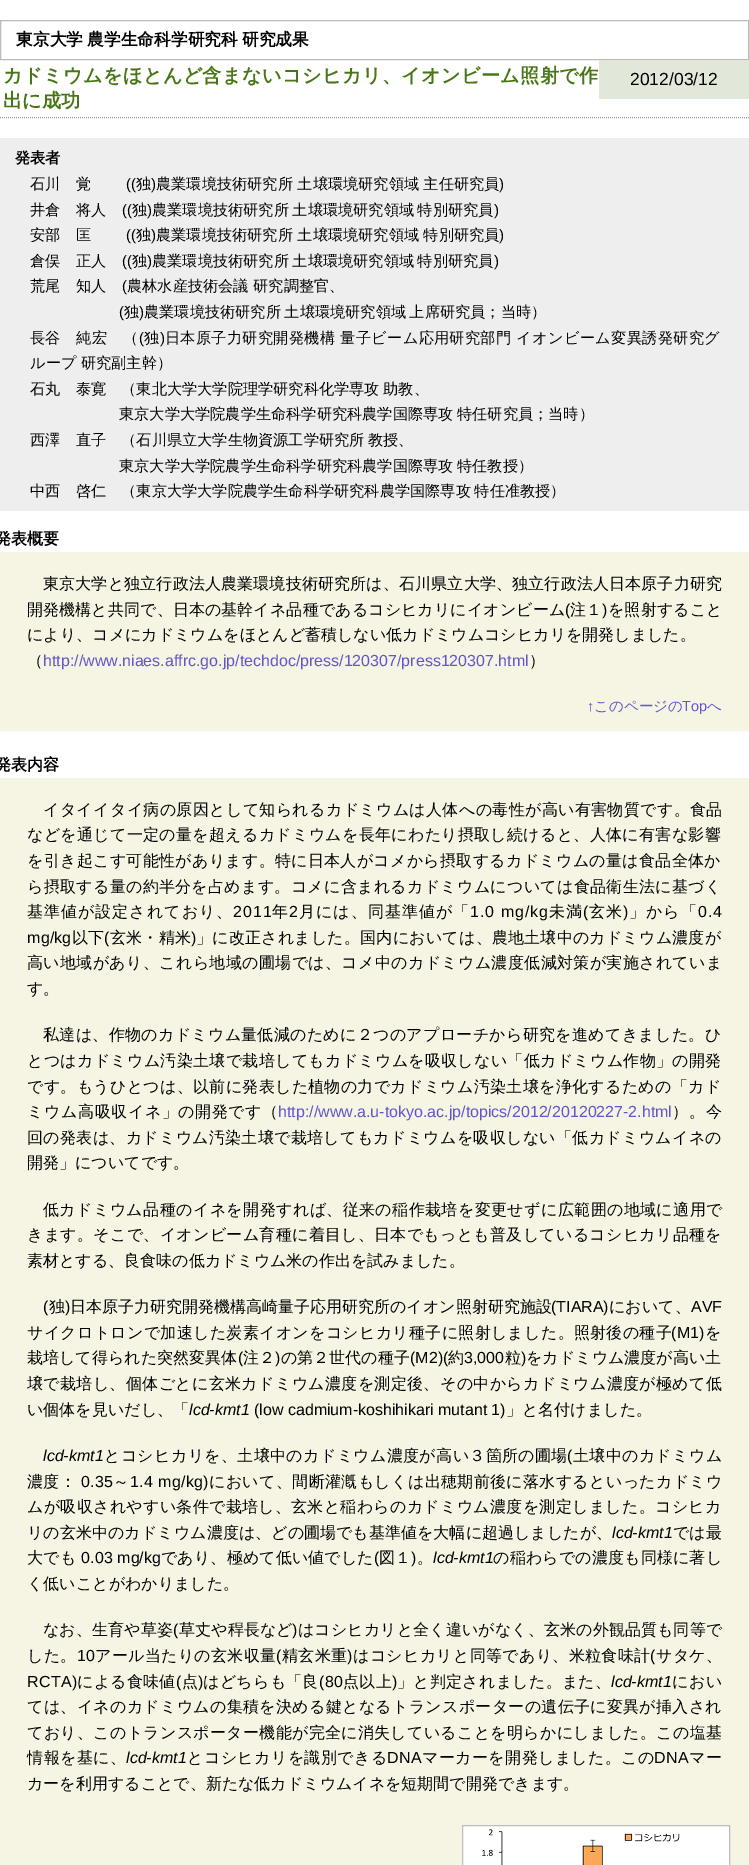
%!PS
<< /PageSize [749 1865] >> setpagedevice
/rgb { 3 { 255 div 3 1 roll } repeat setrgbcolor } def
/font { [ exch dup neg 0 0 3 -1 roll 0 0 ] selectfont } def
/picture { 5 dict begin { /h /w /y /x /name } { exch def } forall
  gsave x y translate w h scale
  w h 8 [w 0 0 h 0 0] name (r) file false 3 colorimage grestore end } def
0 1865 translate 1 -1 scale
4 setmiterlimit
255 255 255 rgb
0 0 749 1865 rectfill
187 187 187 rgb
0.5 20.5 748 39 rectstroke
153 153 153 rgb
[1 1] 0 setdash
0 117.5 moveto 749 117.5 lineto stroke
[
  [599 60 150 39 225 232 217]
  [0 138 749 373 238 238 238]
  [0 552 749 179 246 244 227]
  [0 778 749 1087 246 244 227]
] { aload pop rgb rectfill } forall
255 255 255 rgb
462.5 1825.5 moveto 729.5 1825.5 lineto 729.5 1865.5 lineto 462.5 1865.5 lineto closepath gsave fill grestore
189 189 189 rgb
[] 0 setdash
stroke
(img/1.rgb) 482 1829 198 36 picture
/WenQuanYiZenHei-Bold 16.75 font
0 0 0 rgb
16 45 moveto -1 0 32 (東京大学 農学生命科学研究科 研究成果) widthshow
/WenQuanYiZenHei-Bold 19.2 font
71 118 20 rgb
3 82 moveto 0.3 0 (カドミウムをほとんど含まないコシヒカリ、イオンビーム照射で作) ashow
3 107 moveto (出に成功) show
/LiberationSans-Regular 17.5 font
0 0 0 rgb
630 85 moveto (2012/03/12) show
/WenQuanYiZenHei-Bold 15.2 font
15 163 moveto (発表者) show
/WenQuanYiZenHei-Medium 15.2 font
30 189 moveto (石川　覚) show
/LiberationSans-Regular 15.2 font
126 189 moveto (\(\() show
/WenQuanYiZenHei-Medium 15.2 font
136 189 moveto (独) show
/LiberationSans-Regular 15.2 font
151 189 moveto (\)) show
/WenQuanYiZenHei-Medium 15.2 font
156 189 moveto (農業環境技術研究所 土壌環境研究領域 主任研究員) show
/LiberationSans-Regular 15.2 font
499 189 moveto (\)) show
/WenQuanYiZenHei-Medium 15.2 font
30 215 moveto (井倉　将人) show
/LiberationSans-Regular 15.2 font
122 215 moveto (\(\() show
/WenQuanYiZenHei-Medium 15.2 font
132 215 moveto (独) show
/LiberationSans-Regular 15.2 font
147 215 moveto (\)) show
/WenQuanYiZenHei-Medium 15.2 font
152 215 moveto -1 0 32 (農業環境技術研究所 土壌環境研究領域 特別研究員) widthshow
/LiberationSans-Regular 15.2 font
494 215 moveto (\)) show
/WenQuanYiZenHei-Medium 15.2 font
30 240 moveto (安部　匡) show
/LiberationSans-Regular 15.2 font
126 240 moveto (\(\() show
/WenQuanYiZenHei-Medium 15.2 font
136 240 moveto (独) show
/LiberationSans-Regular 15.2 font
151 240 moveto (\)) show
/WenQuanYiZenHei-Medium 15.2 font
156 240 moveto (農業環境技術研究所 土壌環境研究領域 特別研究員) show
/LiberationSans-Regular 15.2 font
499 240 moveto (\)) show
/WenQuanYiZenHei-Medium 15.2 font
30 266 moveto (倉俣　正人) show
/LiberationSans-Regular 15.2 font
122 266 moveto (\(\() show
/WenQuanYiZenHei-Medium 15.2 font
132 266 moveto (独) show
/LiberationSans-Regular 15.2 font
147 266 moveto (\)) show
/WenQuanYiZenHei-Medium 15.2 font
152 266 moveto -1 0 32 (農業環境技術研究所 土壌環境研究領域 特別研究員) widthshow
/LiberationSans-Regular 15.2 font
494 266 moveto (\)) show
/WenQuanYiZenHei-Medium 15.2 font
30 291 moveto (荒尾　知人) show
/LiberationSans-Regular 15.2 font
122 291 moveto (\() show
/WenQuanYiZenHei-Medium 15.2 font
127 291 moveto (農林水産技術会議 研究調整官、) show
/LiberationSans-Regular 15.2 font
119 317 moveto (\() show
/WenQuanYiZenHei-Medium 15.2 font
124 317 moveto (独) show
/LiberationSans-Regular 15.2 font
139 317 moveto (\)) show
/WenQuanYiZenHei-Medium 15.2 font
144 317 moveto -1 0 32 (農業環境技術研究所 土壌環境研究領域 上席研究員；当時）) widthshow
30 343 moveto 0.3 0 (長谷　純宏　（) ashow
/LiberationSans-Regular 15.2 font
139 343 moveto 0.3 0 (\() ashow
/WenQuanYiZenHei-Medium 15.2 font
144 343 moveto 0.3 0 (独) ashow
/LiberationSans-Regular 15.2 font
160 343 moveto 0.3 0 (\)) ashow
/WenQuanYiZenHei-Medium 15.2 font
165 343 moveto 0.3 0 (日本原子力研究開発機構 量子ビーム応用研究部門 イオンビーム変異誘発研究グ) ashow
30 368 moveto (ループ 研究副主幹）) show
30 394 moveto -1 0 32 (石丸　泰寛　（東北大学大学院理学研究科化学専攻 助教、) widthshow
119 419 moveto -1 0 32 (東京大学大学院農学生命科学研究科農学国際専攻 特任研究員；当時）) widthshow
30 445 moveto -1 0 32 (西澤　直子　（石川県立大学生物資源工学研究所 教授、) widthshow
119 471 moveto -1 0 32 (東京大学大学院農学生命科学研究科農学国際専攻 特任教授）) widthshow
30 496 moveto -1 0 32 (中西　啓仁　（東京大学大学院農学生命科学研究科農学国際専攻 特任准教授）) widthshow
/WenQuanYiZenHei-Bold 16 font
-5 544 moveto (発表概要) show
/WenQuanYiZenHei-Medium 16 font
43 589 moveto 0.15 0 (東京大学と独立行政法人農業環境技術研究所は、石川県立大学、独立行政法人日本原子力研究) ashow
27 615 moveto 0.1 0 (開発機構と共同で、日本の基幹イネ品種であるコシヒカリにイオンビーム) ashow
/LiberationSans-Regular 16 font
565 615 moveto 0.1 0 (\() ashow
/WenQuanYiZenHei-Medium 16 font
570 615 moveto 0.1 0 (注１) ashow
/LiberationSans-Regular 16 font
602 615 moveto 0.1 0 (\)) ashow
/WenQuanYiZenHei-Medium 16 font
608 615 moveto 0.1 0 (を照射すること) ashow
27 640 moveto (により、コメにカドミウムをほとんど蓄積しない低カドミウムコシヒカリを開発しました。) show
27 666 moveto (（) show
/LiberationSans-Regular 16 font
101 85 204 rgb
43 666 moveto (http://www.niaes.affrc.go.jp/techdoc/press/120307/press120307.html) show
/WenQuanYiZenHei-Medium 16 font
0 0 0 rgb
529 666 moveto (）) show
/LiberationSans-Bold 14.5 font
101 85 204 rgb
587 711 moveto (↑) show
/WenQuanYiZenHei-Medium 14.5 font
594 711 moveto (このページの) show
/LiberationSans-Regular 14.5 font
682 711 moveto (Top) show
/WenQuanYiZenHei-Medium 14.5 font
707 711 moveto (へ) show
/WenQuanYiZenHei-Bold 16 font
0 0 0 rgb
-5 770 moveto (発表内容) show
/WenQuanYiZenHei-Medium 16 font
43 815 moveto 0.35 0 (イタイイタイ病の原因として知られるカドミウムは人体への毒性が高い有害物質です。食品) ashow
27 840 moveto 0.3 0 (などを通じて一定の量を超えるカドミウムを長年にわたり摂取し続けると、人体に有害な影響) ashow
27 866 moveto 0.3 0 (を引き起こす可能性があります。特に日本人がコメから摂取するカドミウムの量は食品全体か) ashow
27 892 moveto 0.3 0 (ら摂取する量の約半分を占めます。コメに含まれるカドミウムについては食品衛生法に基づく) ashow
27 917 moveto 1 0 (基準値が設定されており、) ashow
/LiberationSans-Regular 16 font
233 917 moveto 1 0 (2011) ashow
/WenQuanYiZenHei-Medium 16 font
272 917 moveto 1 0 (年) ashow
/LiberationSans-Regular 16 font
289 917 moveto 1 0 (2) ashow
/WenQuanYiZenHei-Medium 16 font
299 917 moveto 1 0 (月には、同基準値が「) ashow
/LiberationSans-Regular 16 font
470 917 moveto 1 0 (1.0 mg/kg) ashow
/WenQuanYiZenHei-Medium 16 font
549 917 moveto 1 0 (未満) ashow
/LiberationSans-Regular 16 font
583 917 moveto 1 0 (\() ashow
/WenQuanYiZenHei-Medium 16 font
589 917 moveto 1 0 (玄米) ashow
/LiberationSans-Regular 16 font
623 917 moveto 1 0 (\)) ashow
/WenQuanYiZenHei-Medium 16 font
629 917 moveto 1 0 (」から「) ashow
/LiberationSans-Regular 16 font
698 917 moveto 1 0 (0.4) ashow
27 943 moveto 0.2 0 (mg/kg) ashow
/WenQuanYiZenHei-Medium 16 font
72 943 moveto 0.2 0 (以下) ashow
/LiberationSans-Regular 16 font
104 943 moveto 0.2 0 (\() ashow
/WenQuanYiZenHei-Medium 16 font
110 943 moveto 0.2 0 (玄米・精米) ashow
/LiberationSans-Regular 16 font
191 943 moveto 0.2 0 (\)) ashow
/WenQuanYiZenHei-Medium 16 font
196 943 moveto 0.2 0 (」に改正されました。国内においては、農地土壌中のカドミウム濃度が) ashow
27 968 moveto 0.35 0 (高い地域があり、これら地域の圃場では、コメ中のカドミウム濃度低減対策が実施されていま) ashow
27 994 moveto (す。) show
43 1040 moveto 0.3 0 (私達は、作物のカドミウム量低減のために２つのアプローチから研究を進めてきました。ひ) ashow
27 1066 moveto 0.3 0 (とつはカドミウム汚染土壌で栽培してもカドミウムを吸収しない「低カドミウム作物」の開発) ashow
27 1092 moveto 0.3 0 (です。もうひとつは、以前に発表した植物の力でカドミウム汚染土壌を浄化するための「カド) ashow
27 1117 moveto 0.6 0 (ミウム高吸収イネ」の開発です（) ashow
/LiberationSans-Regular 16 font
101 85 204 rgb
278 1117 moveto (http://www.a.u-tokyo.ac.jp/topics/2012/20120227-2.html) show
/WenQuanYiZenHei-Medium 16 font
0 0 0 rgb
672 1117 moveto 1 0 (）。今) ashow
27 1143 moveto 0.3 0 (回の発表は、カドミウム汚染土壌で栽培してもカドミウムを吸収しない「低カドミウムイネの) ashow
27 1168 moveto (開発」についてです。) show
43 1215 moveto 0.4 0 (低カドミウム品種のイネを開発すれば、従来の稲作栽培を変更せずに広範囲の地域に適用で) ashow
27 1240 moveto 0.3 0 (きます。そこで、イオンビーム育種に着目し、日本でもっとも普及しているコシヒカリ品種を) ashow
27 1266 moveto (素材とする、良食味の低カドミウム米の作出を試みました。) show
/LiberationSans-Regular 16 font
43 1312 moveto (\() show
/WenQuanYiZenHei-Medium 16 font
49 1312 moveto (独) show
/LiberationSans-Regular 16 font
65 1312 moveto (\)) show
/WenQuanYiZenHei-Medium 16 font
70 1312 moveto (日本原子力研究開発機構高崎量子応用研究所のイオン照射研究施設) show
/LiberationSans-Regular 16 font
551 1312 moveto (\(TIARA\)) show
/WenQuanYiZenHei-Medium 16 font
609 1312 moveto (において、) show
/LiberationSans-Regular 16 font
691 1312 moveto (AVF) show
/WenQuanYiZenHei-Medium 16 font
27 1338 moveto 0.3 0 (サイクロトロンで加速した炭素イオンをコシヒカリ種子に照射しました。照射後の種子) ashow
/LiberationSans-Regular 16 font
671 1338 moveto 0.3 0 (\(M1\)) ashow
/WenQuanYiZenHei-Medium 16 font
705 1338 moveto 0.3 0 (を) ashow
27 1363 moveto (栽培して得られた突然変異体) show
/LiberationSans-Regular 16 font
238 1363 moveto (\() show
/WenQuanYiZenHei-Medium 16 font
243 1363 moveto (注２) show
/LiberationSans-Regular 16 font
275 1363 moveto (\)) show
/WenQuanYiZenHei-Medium 16 font
281 1363 moveto (の第２世代の種子) show
/LiberationSans-Regular 16 font
410 1363 moveto (\(M2\)\() show
/WenQuanYiZenHei-Medium 16 font
448 1363 moveto (約) show
/LiberationSans-Regular 16 font
464 1363 moveto (3,000) show
/WenQuanYiZenHei-Medium 16 font
505 1363 moveto (粒) show
/LiberationSans-Regular 16 font
521 1363 moveto (\)) show
/WenQuanYiZenHei-Medium 16 font
526 1363 moveto (をカドミウム濃度が高い土) show
27 1389 moveto 0.35 0 (壌で栽培し、個体ごとに玄米カドミウム濃度を測定後、その中からカドミウム濃度が極めて低) ashow
27 1415 moveto (い個体を見いだし、「) show
/LiberationSans-Italic 16 font
189 1415 moveto (lcd-kmt1) show
/LiberationSans-Regular 16 font
254 1415 moveto (\(low cadmium-koshihikari mutant 1\)) show
/WenQuanYiZenHei-Medium 16 font
506 1415 moveto (」と名付けました。) show
/LiberationSans-Italic 16 font
43 1461 moveto (lcd-kmt1) show
/WenQuanYiZenHei-Medium 16 font
104 1461 moveto 0.35 0 (とコシヒカリを、土壌中のカドミウム濃度が高い３箇所の圃場) ashow
/LiberationSans-Regular 16 font
567 1461 moveto 0.35 0 (\() ashow
/WenQuanYiZenHei-Medium 16 font
573 1461 moveto 0.35 0 (土壌中のカドミウム) ashow
27 1487 moveto 0.35 0 (濃度：) ashow
/LiberationSans-Regular 16 font
81 1487 moveto 0.35 0 (0.35) ashow
/WenQuanYiZenHei-Medium 16 font
113 1487 moveto 0.35 0 (～) ashow
/LiberationSans-Regular 16 font
130 1487 moveto 0.35 0 (1.4 mg/kg\)) ashow
/WenQuanYiZenHei-Medium 16 font
209 1487 moveto 0.35 0 (において、間断灌漑もしくは出穂期前後に落水するといったカドミウ) ashow
27 1512 moveto 0.3 0 (ムが吸収されやすい条件で栽培し、玄米と稲わらのカドミウム濃度を測定しました。コシヒカ) ashow
27 1538 moveto 0.05 0 (リの玄米中のカドミウム濃度は、どの圃場でも基準値を大幅に超過しましたが、) ashow
/LiberationSans-Italic 16 font
612 1538 moveto (lcd-kmt1) show
/WenQuanYiZenHei-Medium 16 font
673 1538 moveto (では最) show
27 1563 moveto 0.1 0 (大でも) ashow
/LiberationSans-Regular 16 font
81 1563 moveto 0.1 0 (0.03 mg/kg) ashow
/WenQuanYiZenHei-Medium 16 font
161 1563 moveto 0.1 0 (であり、極めて低い値でした) ashow
/LiberationSans-Regular 16 font
374 1563 moveto 0.1 0 (\() ashow
/WenQuanYiZenHei-Medium 16 font
379 1563 moveto 0.1 0 (図１) ashow
/LiberationSans-Regular 16 font
411 1563 moveto 0.1 0 (\)) ashow
/WenQuanYiZenHei-Medium 16 font
417 1563 moveto 0.1 0 (。) ashow
/LiberationSans-Italic 16 font
433 1563 moveto (lcd-kmt1) show
/WenQuanYiZenHei-Medium 16 font
493 1563 moveto 0.15 0 (の稲わらでの濃度も同様に著し) ashow
27 1589 moveto (く低いことがわかりました。) show
43 1635 moveto 0.1 0 (なお、生育や草姿) ashow
/LiberationSans-Regular 16 font
173 1635 moveto 0.1 0 (\() ashow
/WenQuanYiZenHei-Medium 16 font
179 1635 moveto 0.1 0 (草丈や稈長など) ashow
/LiberationSans-Regular 16 font
292 1635 moveto 0.1 0 (\)) ashow
/WenQuanYiZenHei-Medium 16 font
298 1635 moveto 0.1 0 (はコシヒカリと全く違いがなく、玄米の外観品質も同等で) ashow
27 1661 moveto 0.3 0 (した。) ashow
/LiberationSans-Regular 16 font
77 1661 moveto 0.3 0 (10) ashow
/WenQuanYiZenHei-Medium 16 font
95 1661 moveto 0.3 0 (アール当たりの玄米収量) ashow
/LiberationSans-Regular 16 font
276 1661 moveto 0.3 0 (\() ashow
/WenQuanYiZenHei-Medium 16 font
282 1661 moveto 0.3 0 (精玄米重) ashow
/LiberationSans-Regular 16 font
347 1661 moveto 0.3 0 (\)) ashow
/WenQuanYiZenHei-Medium 16 font
353 1661 moveto 0.3 0 (はコシヒカリと同等であり、米粒食味計) ashow
/LiberationSans-Regular 16 font
650 1661 moveto 0.3 0 (\() ashow
/WenQuanYiZenHei-Medium 16 font
656 1661 moveto 0.3 0 (サタケ、) ashow
/LiberationSans-Regular 16 font
27 1687 moveto 0.25 0 (RCTA\)) ashow
/WenQuanYiZenHei-Medium 16 font
77 1687 moveto 0.25 0 (による食味値) ashow
/LiberationSans-Regular 16 font
176 1687 moveto 0.25 0 (\() ashow
/WenQuanYiZenHei-Medium 16 font
182 1687 moveto 0.25 0 (点) ashow
/LiberationSans-Regular 16 font
198 1687 moveto 0.25 0 (\)) ashow
/WenQuanYiZenHei-Medium 16 font
203 1687 moveto 0.25 0 (はどちらも「良) ashow
/LiberationSans-Regular 16 font
319 1687 moveto 0.25 0 (\(80) ashow
/WenQuanYiZenHei-Medium 16 font
343 1687 moveto 0.25 0 (点以上) ashow
/LiberationSans-Regular 16 font
392 1687 moveto 0.25 0 (\)) ashow
/WenQuanYiZenHei-Medium 16 font
397 1687 moveto 0.25 0 (」と判定されました。また、) ashow
/LiberationSans-Italic 16 font
611 1687 moveto (lcd-kmt1) show
/WenQuanYiZenHei-Medium 16 font
672 1687 moveto 0.5 0 (におい) ashow
27 1712 moveto 0.3 0 (ては、イネのカドミウムの集積を決める鍵となるトランスポーターの遺伝子に変異が挿入され) ashow
27 1738 moveto 0.3 0 (ており、このトランスポーター機能が完全に消失していることを明らかにしました。この塩基) ashow
27 1763 moveto 0.5 0 (情報を基に、) ashow
/LiberationSans-Italic 16 font
126 1763 moveto (lcd-kmt1) show
/WenQuanYiZenHei-Medium 16 font
187 1763 moveto 0.4 0 (とコシヒカリを識別できる) ashow
/LiberationSans-Regular 16 font
387 1763 moveto 0.4 0 (DNA) ashow
/WenQuanYiZenHei-Medium 16 font
422 1763 moveto 0.4 0 (マーカーを開発しました。この) ashow
/LiberationSans-Regular 16 font
654 1763 moveto 0.4 0 (DNA) ashow
/WenQuanYiZenHei-Medium 16 font
689 1763 moveto 0.4 0 (マー) ashow
27 1789 moveto (カーを利用することで、新たな低カドミウムイネを短期間で開発できます。) show
showpage
